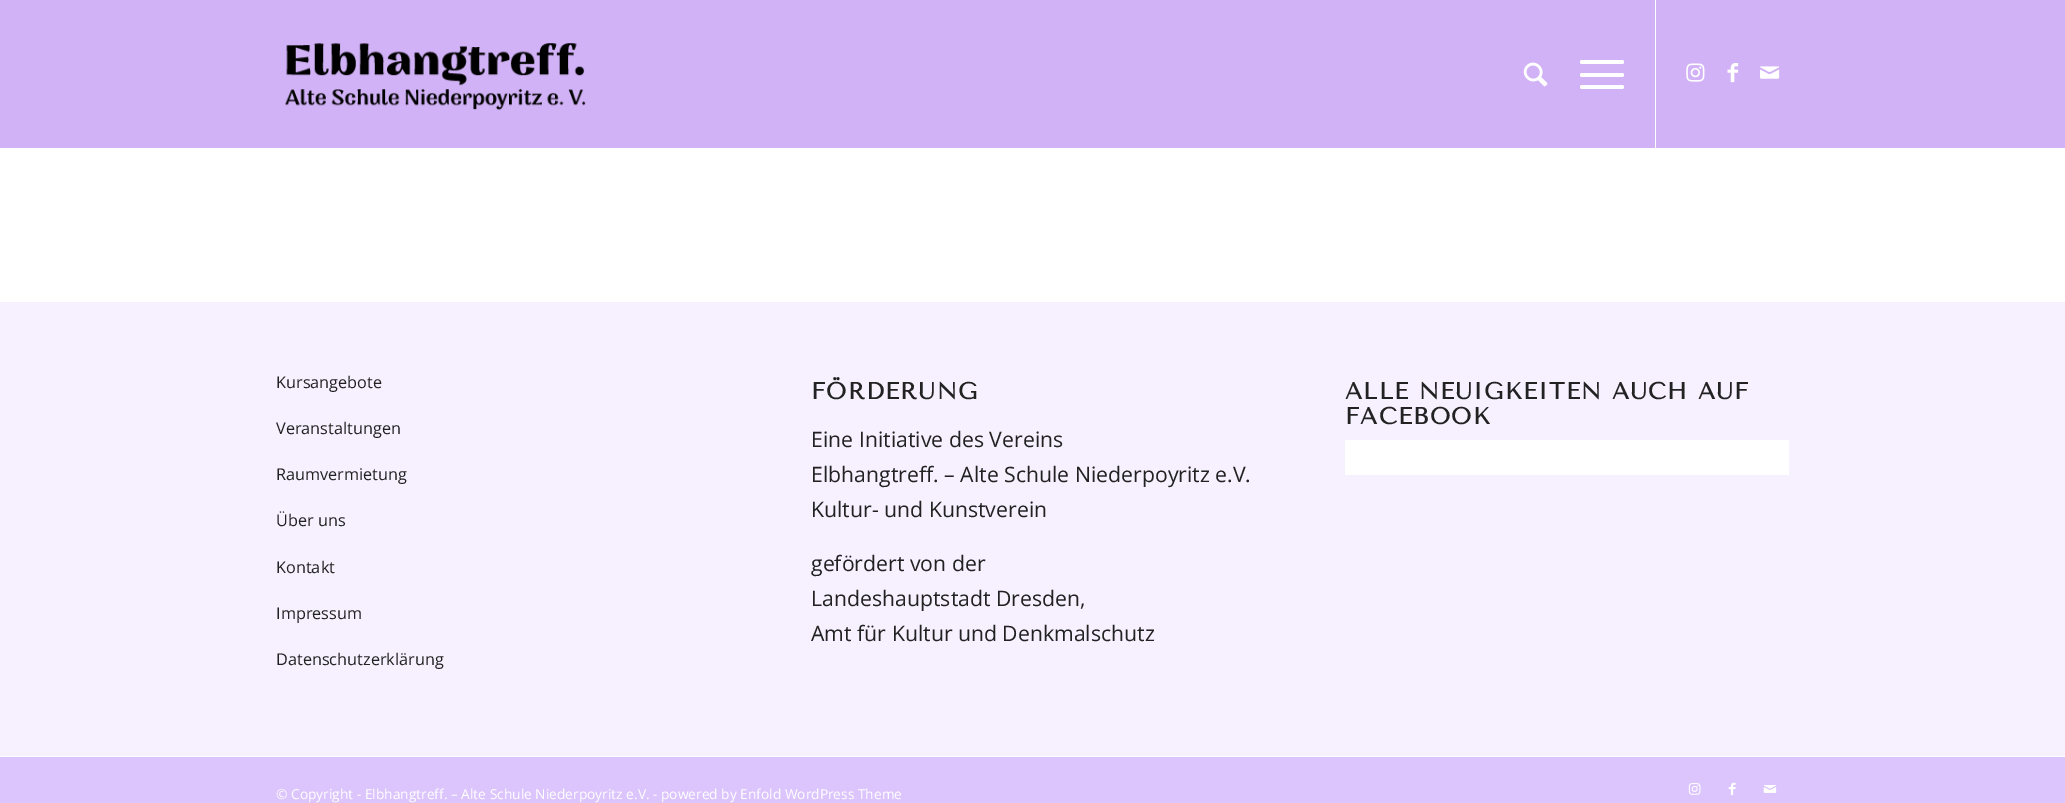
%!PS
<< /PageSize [2065 803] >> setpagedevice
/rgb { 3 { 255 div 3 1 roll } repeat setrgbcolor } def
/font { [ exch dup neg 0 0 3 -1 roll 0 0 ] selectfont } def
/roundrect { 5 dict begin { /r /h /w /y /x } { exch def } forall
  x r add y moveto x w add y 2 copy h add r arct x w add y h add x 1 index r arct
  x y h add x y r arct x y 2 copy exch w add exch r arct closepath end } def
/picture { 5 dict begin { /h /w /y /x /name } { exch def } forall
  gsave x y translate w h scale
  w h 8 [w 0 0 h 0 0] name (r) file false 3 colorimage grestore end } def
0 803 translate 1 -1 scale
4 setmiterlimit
255 255 255 rgb
0 0 2065 803 rectfill
210 178 247 rgb
0 0 2065 148 rectfill
(img/1.rgb) 285 43 301 68 picture
255 255 255 rgb
1655 0 1 148 rectfill
(img/2.rgb) 1523 62 25 25 picture
1580 73 44 4 2 roundrect fill
1580 60 44 4 2 roundrect fill
1580 85 44 4 2 roundrect fill
(img/3.rgb) 1686 63 19 19 picture
(img/4.rgb) 1727 63 12 20 picture
(img/5.rgb) 1760 66 20 13 picture
[
  [0 302 2065 454 247 240 255]
  [1345 440 444 35 255 255 255]
  [0 757 2065 46 220 197 252]
] { aload pop rgb rectfill } forall
(img/6.rgb) 1688 783 13 12 picture
(img/7.rgb) 1728 782 8 14 picture
(img/8.rgb) 1763 785 14 8 picture
/OpenSans-Regular 16.25 font
34 34 34 rgb
[
  [(Kursangebote) 276 388]
  [(Veranstaltungen) 276 434]
  [(Raumvermietung) 276 480]
  [(Über uns) 276 526]
  [(Kontakt) 276 573]
  [(Impressum) 276 619]
  [(Datenschutzerklärung) 276 665]
] { aload pop moveto show } forall
/TenorSans-Bold 23.4 font
811 399 moveto 1.25 0 (FÖRDERUNG) ashow
/OpenSans-Regular 21.25 font
[
  [(Eine Initiative des Vereins) 811 447]
  [(Elbhangtreff. – Alte Schule Niederpoyritz e.V.) 811 482]
  [(Kultur- und Kunstverein) 811 517]
  [(gefördert von der) 811 571]
  [(Landeshauptstadt Dresden,) 811 606]
  [(Amt für Kultur und Denkmalschutz) 811 641]
] { aload pop moveto show } forall
/TenorSans-Bold 23.4 font
1345 399 moveto 1.25 0 (ALLE NEUIGKEITEN AUCH AUF) ashow
1345 424 moveto 1.25 0 (FACEBOOK) ashow
/OpenSans-Regular 13.75 font
255 255 255 rgb
276 799 moveto (© Copyright - Elbhangtreff. – Alte Schule Niederpoyritz e.V. - powered by Enfold WordPress Theme) show
showpage
